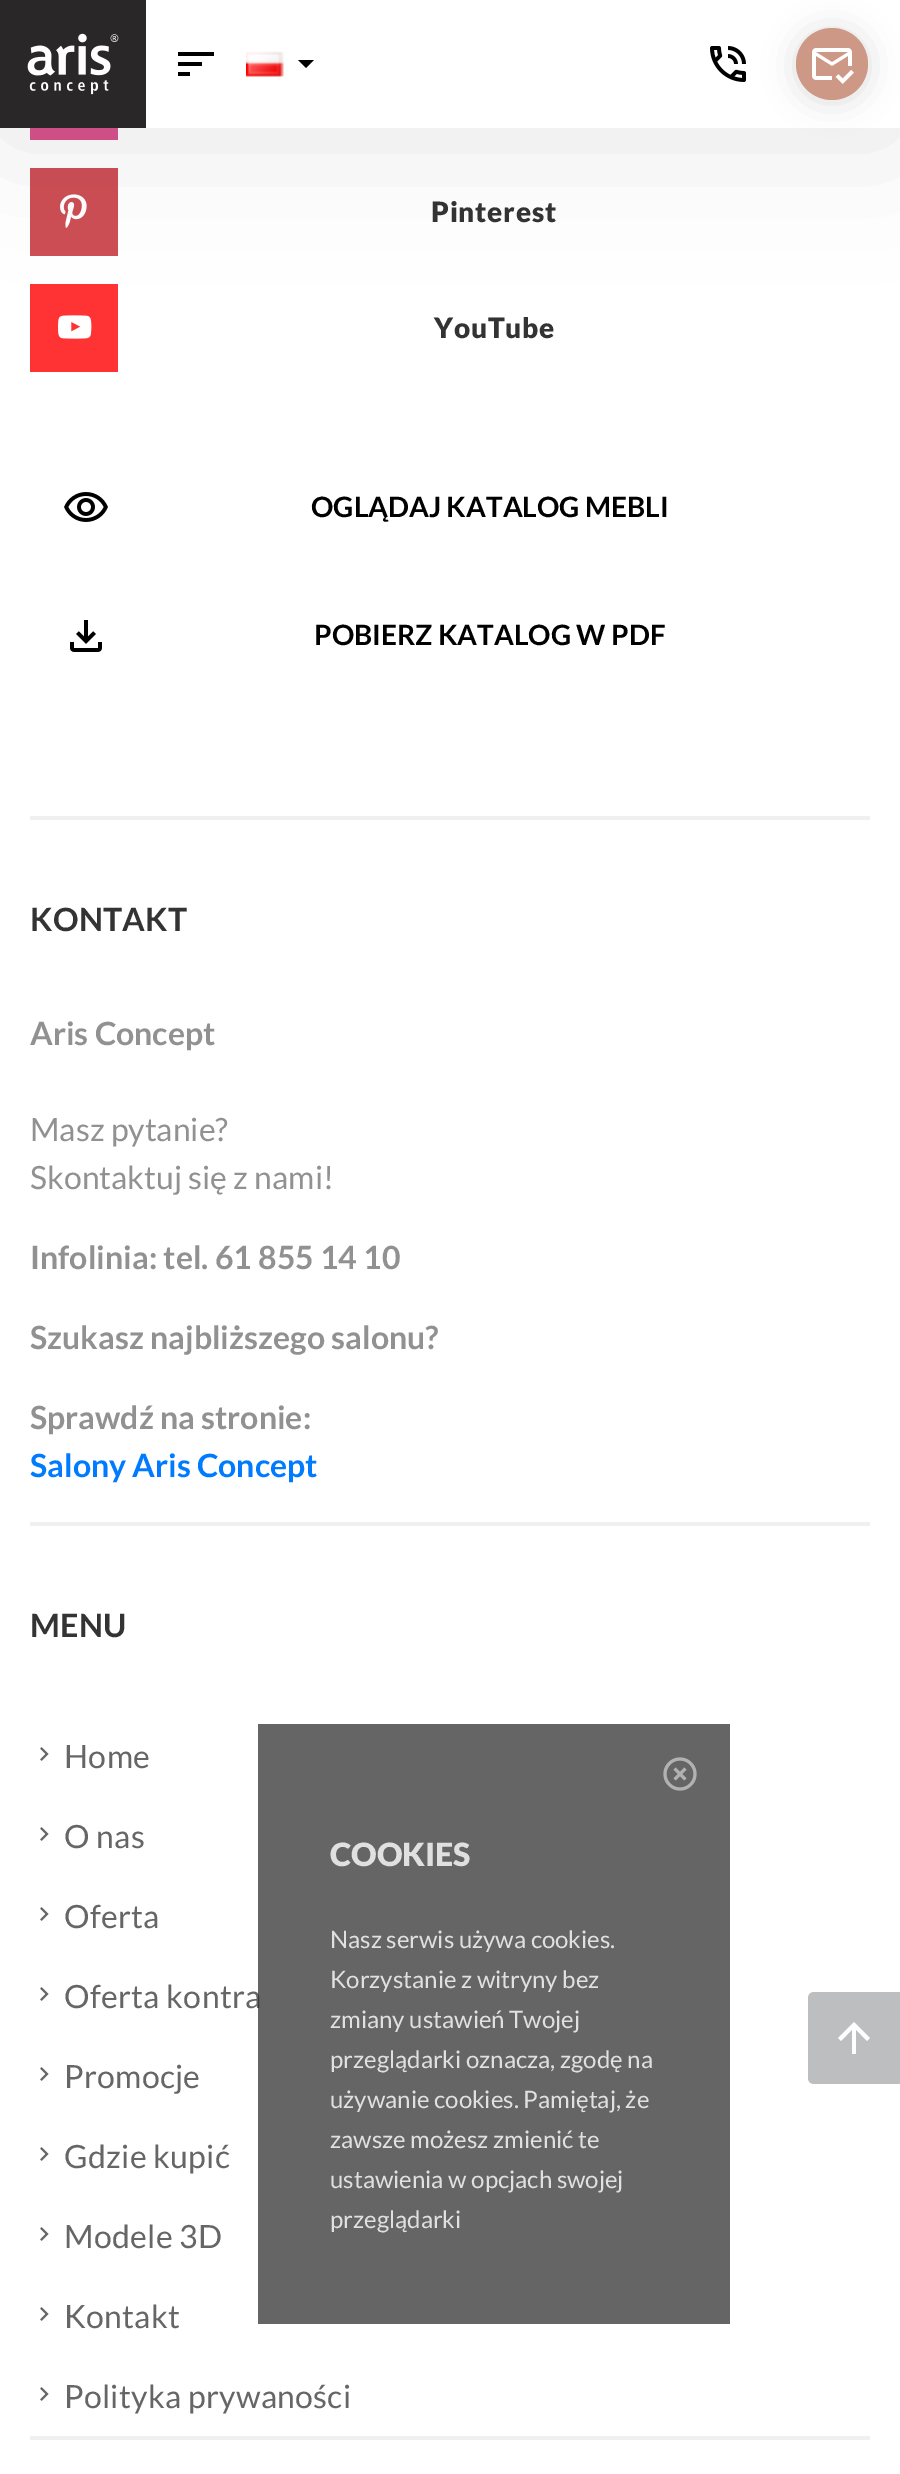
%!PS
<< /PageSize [900 2474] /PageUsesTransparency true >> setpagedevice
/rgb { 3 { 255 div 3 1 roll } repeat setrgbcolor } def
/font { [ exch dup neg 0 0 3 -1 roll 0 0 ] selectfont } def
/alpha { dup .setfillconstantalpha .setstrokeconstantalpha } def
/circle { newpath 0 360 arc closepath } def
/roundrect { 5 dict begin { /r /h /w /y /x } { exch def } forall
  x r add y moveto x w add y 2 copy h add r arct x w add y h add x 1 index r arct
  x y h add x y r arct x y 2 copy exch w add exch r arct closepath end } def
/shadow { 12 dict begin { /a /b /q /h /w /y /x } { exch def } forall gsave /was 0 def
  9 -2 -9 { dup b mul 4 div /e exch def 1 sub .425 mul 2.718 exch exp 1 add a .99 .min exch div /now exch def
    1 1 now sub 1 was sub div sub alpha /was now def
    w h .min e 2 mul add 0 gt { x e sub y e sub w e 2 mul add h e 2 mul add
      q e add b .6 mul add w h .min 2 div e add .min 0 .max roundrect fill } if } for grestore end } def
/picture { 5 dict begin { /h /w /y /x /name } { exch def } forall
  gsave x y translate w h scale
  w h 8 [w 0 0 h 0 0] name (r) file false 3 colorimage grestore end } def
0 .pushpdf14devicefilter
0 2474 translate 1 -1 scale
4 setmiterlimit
255 255 255 rgb
0 0 900 2474 rectfill
217 83 142 rgb
30 128 88 12 rectfill
206 78 85 rgb
30 168 88 88 rectfill
(img/5.rgb) 60 194 27 34 picture
255 51 51 rgb
30 284 88 88 rectfill
(img/6.rgb) 58 315 34 24 picture
0 0 0 rgb
0 10 900 128 2 65 0.1 shadow
255 255 255 rgb
0 0 900 128 2 roundrect fill
(img/1.rgb) 0 0 146 128 picture
0 0 0 rgb
178 76 moveto 190 76 lineto 190 72 lineto 178 72 lineto closepath 178 52 moveto 178 56 lineto 214 56 lineto 214 52 lineto closepath 178 66 moveto 202 66 lineto 202 62 lineto 178 62 lineto closepath fill
(img/2.rgb) 246 51 38 26 picture
298 60 moveto 314 60 lineto 306 68 lineto closepath fill
(img/3.rgb) 710 46 36 36 picture
796 30 72 72 36 16 0.14 shadow
205 152 133 rgb
832 64 36 circle fill
(img/4.rgb) 812 48 42 36 picture
(img/7.rgb) 64 492 44 30 picture
(img/8.rgb) 70 620 32 32 picture
240 240 240 rgb
30 816 840 4 rectfill
30 1522 840 4 rectfill
(img/9.rgb) 40 1747 9 14 picture
(img/9.rgb) 40 1827 9 14 picture
(img/9.rgb) 40 1907 9 14 picture
(img/9.rgb) 40 1987 9 14 picture
(img/9.rgb) 40 2067 9 14 picture
(img/9.rgb) 40 2147 9 14 picture
(img/9.rgb) 40 2227 9 14 picture
(img/9.rgb) 40 2307 9 14 picture
(img/9.rgb) 40 2387 9 14 picture
30 2436 840 4 rectfill
189 190 191 rgb
814 1992 moveto 900 1992 lineto 900 2084 lineto 814 2084 lineto 810.5 2084 808 2081.5 808 2078 curveto 808 1998 lineto 808 1994.5 810.5 1992 814 1992 curveto closepath fill
255 255 255 rgb
838 2038 moveto 854 2022 lineto 870 2038 lineto 867 2041 lineto 856 2029.5 lineto 856 2054 lineto 852 2054 lineto 852 2029.5 lineto 841 2041 lineto closepath fill
/Lato-Black 28 font
51 51 51 rgb
431 222 moveto 0.75 0 (Pinterest) ashow
434 338 moveto 0.75 0 (YouTube) ashow
/Lato-Bold 28 font
0 0 0 rgb
311 517 moveto (OGLĄDAJ KATALOG MEBLI) show
314 645 moveto (POBIERZ KATALOG W PDF) show
/Lato-Bold 32 font
51 51 51 rgb
30 931 moveto 0.3 0 (KONTAKT) ashow
145 145 145 rgb
30 1045 moveto (Aris Concept) show
/Lato-Regular 32 font
30 1141 moveto (Masz pytanie?) show
30 1189 moveto (Skontaktuj się z nami!) show
/Lato-Bold 32 font
[
  [(Infolinia: tel. 61 855 14 10) 30 1269]
  [(Szukasz najbliższego salonu?) 30 1349]
  [(Sprawdź na stronie:) 30 1429]
] { aload pop moveto show } forall
0 123 255 rgb
30 1477 moveto (Salony Aris Concept) show
51 51 51 rgb
30 1637 moveto 0.3 0 (MENU) ashow
/Lato-Regular 32 font
102 102 102 rgb
64 1768 moveto 0.3 0 (Home) ashow
64 1848 moveto 0.3 0 (O nas) ashow
64 1928 moveto 0.3 0 (Oferta) ashow
64 2008 moveto 0.3 0 (Oferta kontra) ashow
64 2088 moveto 0.3 0 (Promocje) ashow
64 2168 moveto 0.3 0 (Gdzie kupić) ashow
64 2248 moveto 0.3 0 (Modele 3D) ashow
64 2328 moveto 0.3 0 (Kontakt) ashow
64 2408 moveto 0.3 0 (Polityka prywaności) ashow
0.74 alpha
47 47 47 rgb
258 1724 472 600 rectfill
1 alpha
(img/10.rgb) 663 1757 34 34 picture
/Lato-Black 32 font
224 224 224 rgb
330 1866 moveto (COOKIES) show
/Lato-Regular 24 font
[
  [(Nasz serwis używa cookies.) 330 1948]
  [(Korzystanie z witryny bez) 330 1988]
  [(zmiany ustawień Twojej) 330 2028]
  [(przeglądarki oznacza, zgodę na) 330 2068]
  [(używanie cookies. Pamiętaj, że) 330 2108]
  [(zawsze możesz zmienić te) 330 2148]
  [(ustawienia w opcjach swojej) 330 2188]
  [(przeglądarki) 330 2228]
] { aload pop moveto show } forall
.poppdf14devicefilter showpage
